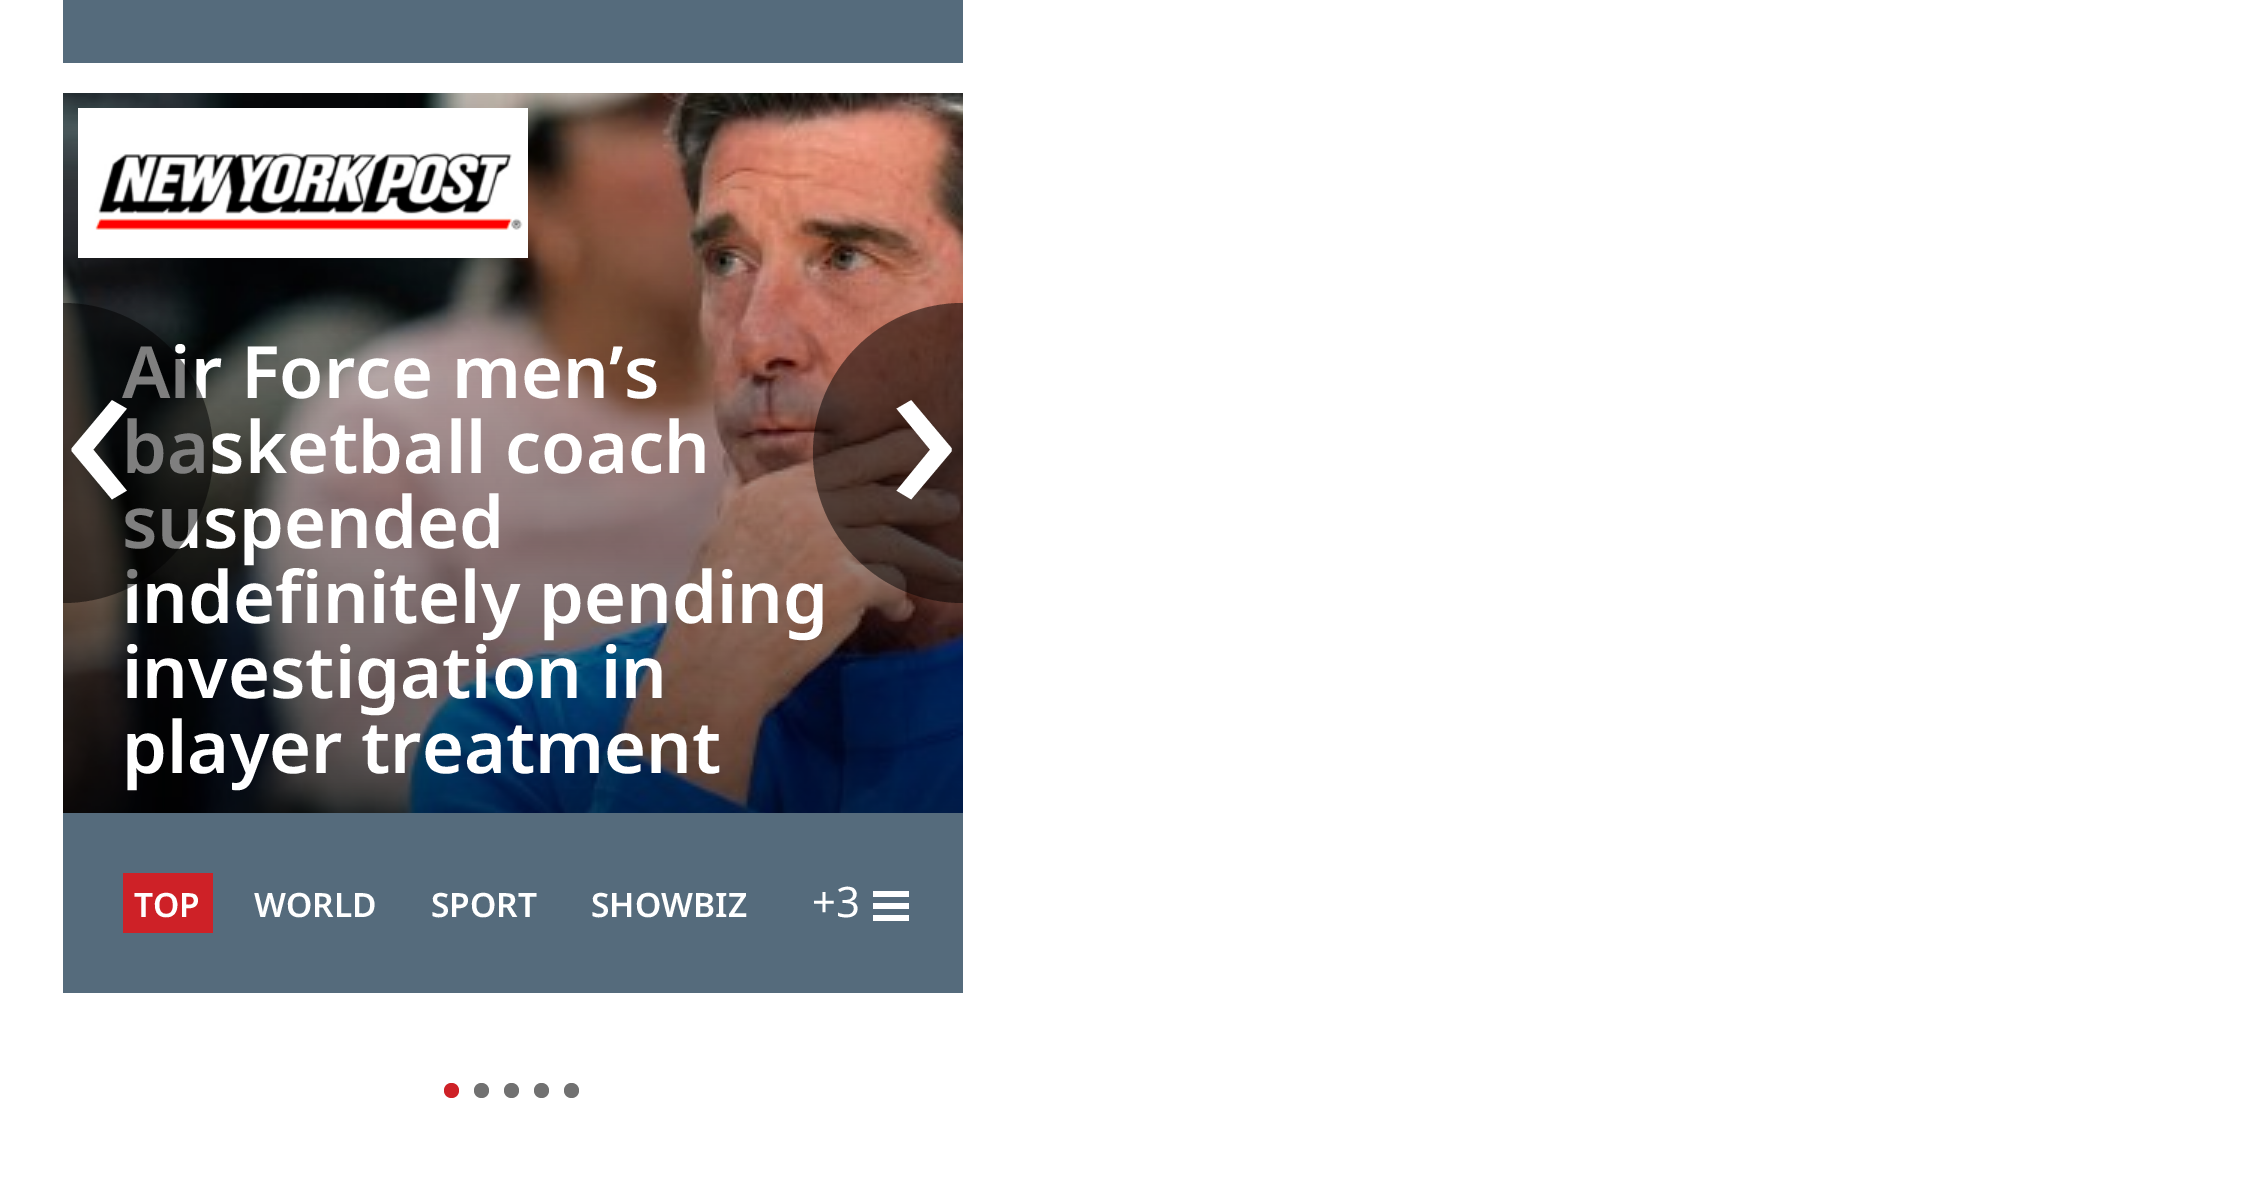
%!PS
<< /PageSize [2251 1202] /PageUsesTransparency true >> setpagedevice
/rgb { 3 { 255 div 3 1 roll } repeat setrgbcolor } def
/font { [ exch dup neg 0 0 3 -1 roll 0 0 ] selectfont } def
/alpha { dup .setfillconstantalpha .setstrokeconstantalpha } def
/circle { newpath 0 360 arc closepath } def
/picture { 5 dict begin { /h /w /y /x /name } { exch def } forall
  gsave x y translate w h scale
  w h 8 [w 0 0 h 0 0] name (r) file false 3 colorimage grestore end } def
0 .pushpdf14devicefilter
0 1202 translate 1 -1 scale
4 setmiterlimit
255 255 255 rgb
0 0 2251 1202 rectfill
85 107 124 rgb
63 0 900 63 rectfill
(img/1.rgb) 63 93 900 720 picture
(img/2.rgb) 78 108 450 150 picture
63 813 900 180 rectfill
206 33 39 rgb
123 873 90 60 rectfill
255 255 255 rgb
873 891 moveto 873 897 lineto 909 897 lineto 909 891 lineto closepath 873 903 moveto 873 909 lineto 909 909 lineto 909 903 lineto closepath 873 915 moveto 873 921 lineto 909 921 lineto 909 915 lineto closepath fill
206 33 39 rgb
451.5 1090.5 7.5 circle fill
113 113 113 rgb
481.5 1090.5 7.5 circle fill
511.5 1090.5 7.5 circle fill
541.5 1090.5 7.5 circle fill
571.5 1090.5 7.5 circle fill
/NotoSans-SemiBold 72 font
255 255 255 rgb
[
  [(Air Force men’s) 122 398]
  [(basketball coach) 122 473]
  [(suspended) 122 548]
  [(indefinitely pending) 122 623]
] { aload pop moveto show } forall
0.5 alpha
0 0 0 rgb
63 303 moveto 146 303 213 370 213 453 curveto 213 536 146 603 63 603 curveto closepath fill
/NotoSans-Regular 240 font
1 alpha
255 255 255 rgb
62 513 moveto (‹) show
/NotoSans-SemiBold 72 font
122 698 moveto (investigation in) show
122 773 moveto (player treatment) show
0.5 alpha
0 0 0 rgb
963 303 moveto 963 603 lineto 880 603 813 536 813 453 curveto 813 370 880 303 963 303 curveto closepath fill
/NotoSans-Regular 240 font
1 alpha
255 255 255 rgb
887 513 moveto (›) show
/NotoSans-SemiBold 33.5 font
[
  [(TOP) 134 917]
  [(WORLD) 254 917]
  [(SPORT) 431 917]
  [(SHOWBIZ) 591 917]
] { aload pop moveto show } forall
/NotoSans-Regular 42 font
812 917 moveto (+3) show
.poppdf14devicefilter showpage
